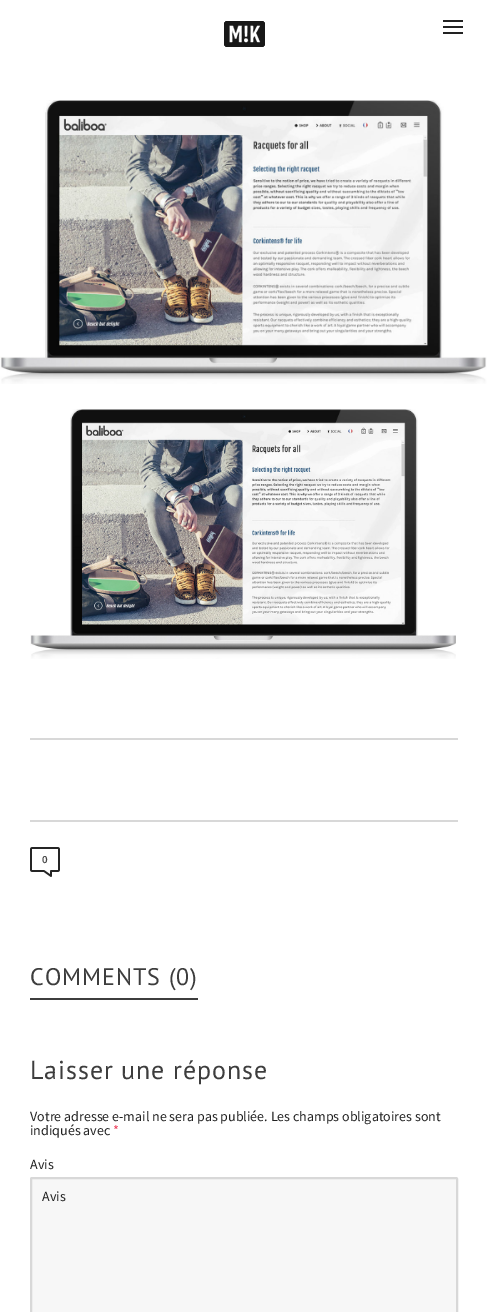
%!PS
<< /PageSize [488 1312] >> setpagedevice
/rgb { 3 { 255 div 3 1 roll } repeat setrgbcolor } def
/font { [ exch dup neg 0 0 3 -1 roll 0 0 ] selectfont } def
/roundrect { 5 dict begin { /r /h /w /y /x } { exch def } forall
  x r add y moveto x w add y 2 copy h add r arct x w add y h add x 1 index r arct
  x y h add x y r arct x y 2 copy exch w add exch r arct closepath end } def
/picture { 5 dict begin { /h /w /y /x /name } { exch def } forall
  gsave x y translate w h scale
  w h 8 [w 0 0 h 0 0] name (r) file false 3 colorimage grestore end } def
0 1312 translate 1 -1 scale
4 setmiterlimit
255 255 255 rgb
0 0 488 1312 rectfill
(img/1.rgb) 224 21 41 26 picture
[
  [443 26 20 2 34 34 34]
  [443 20 20 2 34 34 34]
  [443 32 20 2 34 34 34]
] { aload pop rgb rectfill } forall
(img/2.rgb) 0 100 487 284 picture
(img/3.rgb) 30 409 426 250 picture
216 216 216 rgb
30 738 428 2 rectfill
30 820 428 2 rectfill
(img/4.rgb) 30 847 30 30 picture
61 61 61 rgb
30 998 168 2 rectfill
247 247 247 rgb
32 1179 424 133 rectfill
216 216 216 rgb
2 setlinewidth
31 1178 426 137 1 roundrect stroke
/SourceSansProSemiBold-SemiBold 11 font
68 68 68 rgb
42 863 moveto (0) show
/PTSans-Regular 24 font
61 61 61 rgb
30 985 moveto 1 0 (COMMENTS \(0\)) ashow
/PTSans-Regular 26 font
30 1079 moveto 0.9 0 (Laisser une réponse) ashow
/SourceSansPro-Regular 14 font
34 34 34 rgb
30 1121 moveto (Votre adresse e-mail ne sera pas publiée. Les champs obligatoires sont) show
30 1135 moveto (indiqués avec) show
238 60 89 rgb
113 1135 moveto (*) show
34 34 34 rgb
30 1169 moveto (Avis) show
42 1201 moveto (Avis) show
showpage
